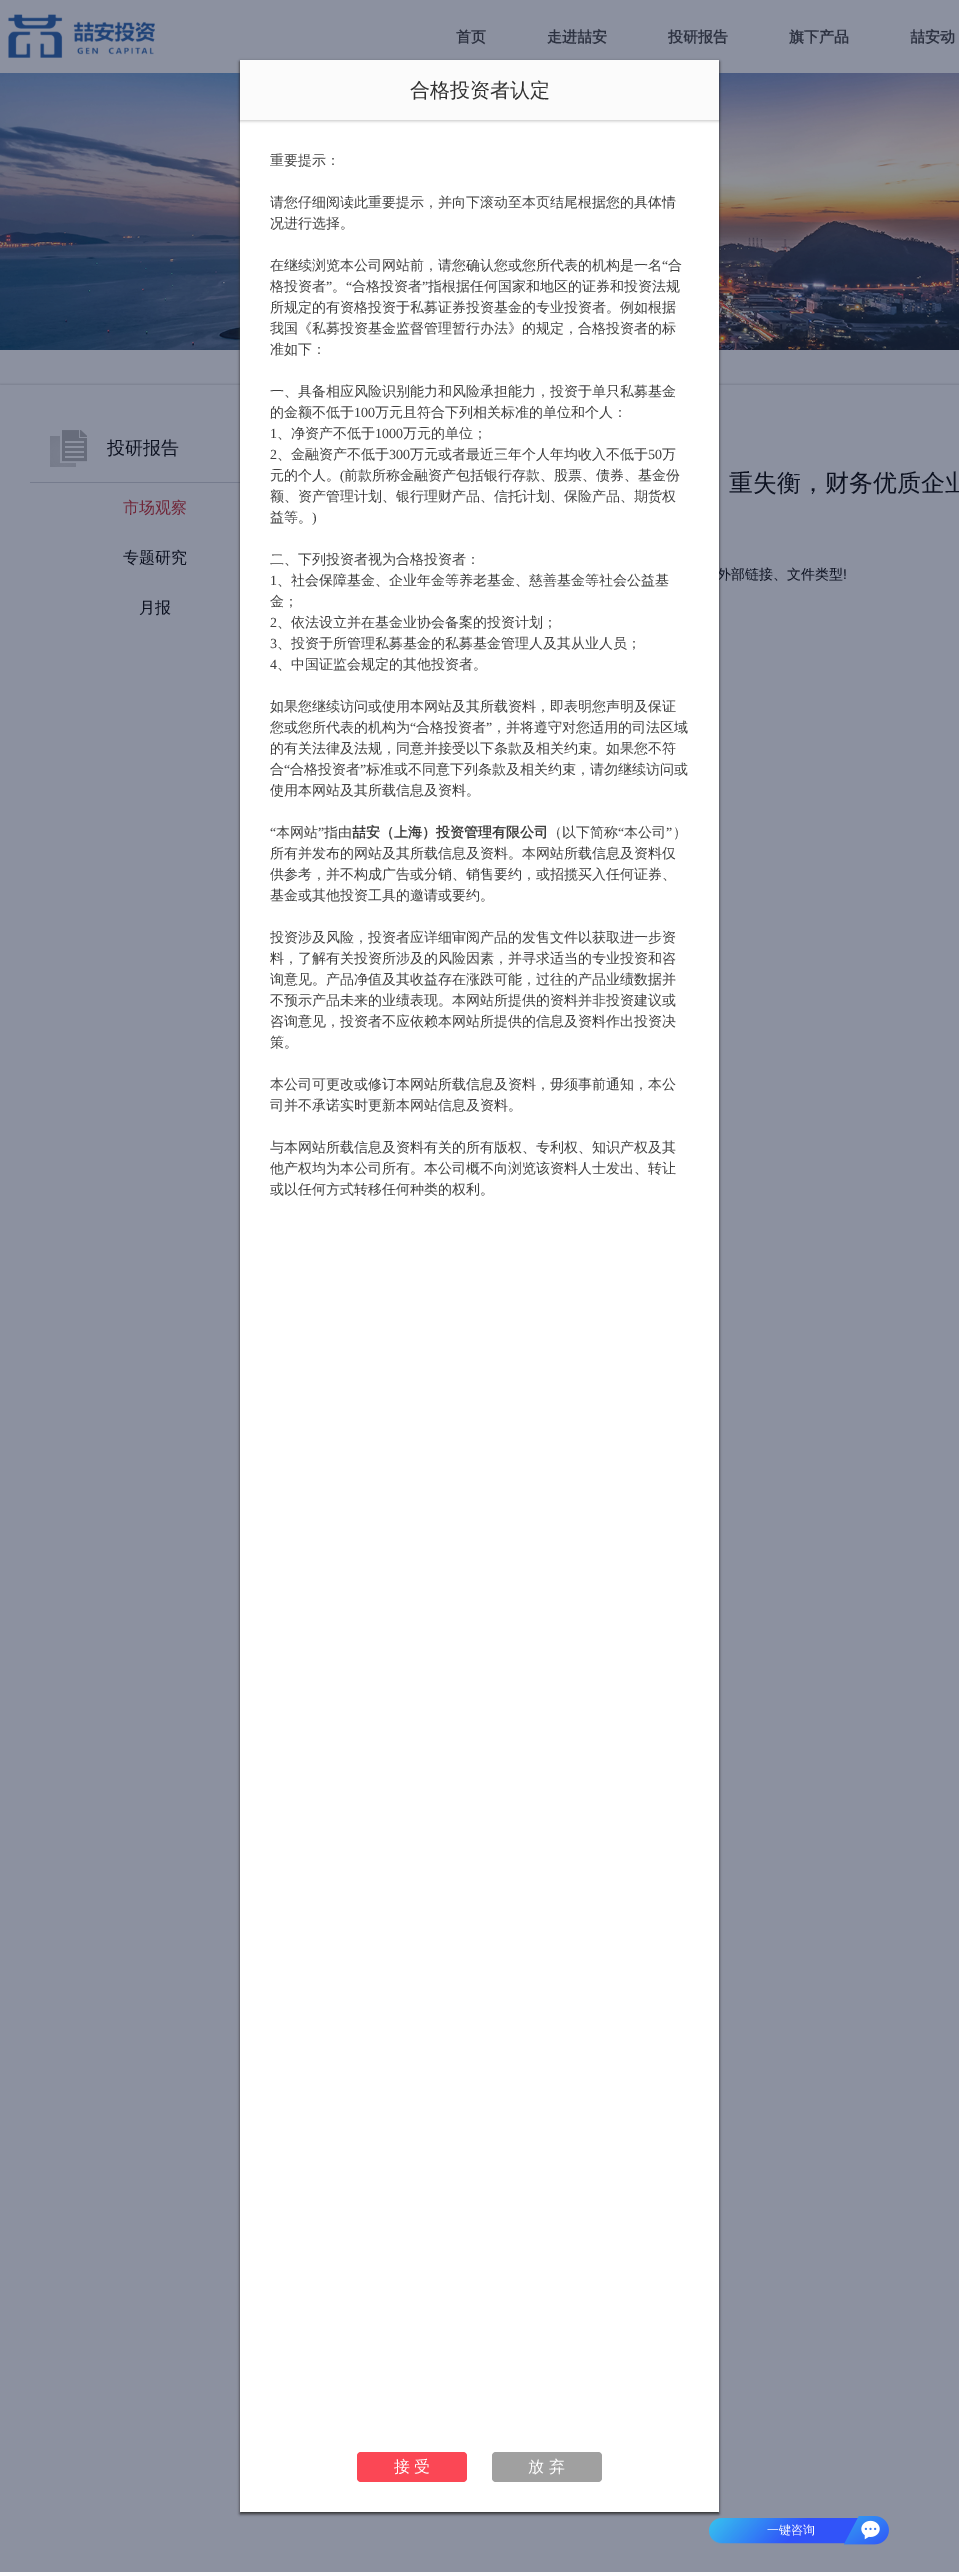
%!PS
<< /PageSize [959 2572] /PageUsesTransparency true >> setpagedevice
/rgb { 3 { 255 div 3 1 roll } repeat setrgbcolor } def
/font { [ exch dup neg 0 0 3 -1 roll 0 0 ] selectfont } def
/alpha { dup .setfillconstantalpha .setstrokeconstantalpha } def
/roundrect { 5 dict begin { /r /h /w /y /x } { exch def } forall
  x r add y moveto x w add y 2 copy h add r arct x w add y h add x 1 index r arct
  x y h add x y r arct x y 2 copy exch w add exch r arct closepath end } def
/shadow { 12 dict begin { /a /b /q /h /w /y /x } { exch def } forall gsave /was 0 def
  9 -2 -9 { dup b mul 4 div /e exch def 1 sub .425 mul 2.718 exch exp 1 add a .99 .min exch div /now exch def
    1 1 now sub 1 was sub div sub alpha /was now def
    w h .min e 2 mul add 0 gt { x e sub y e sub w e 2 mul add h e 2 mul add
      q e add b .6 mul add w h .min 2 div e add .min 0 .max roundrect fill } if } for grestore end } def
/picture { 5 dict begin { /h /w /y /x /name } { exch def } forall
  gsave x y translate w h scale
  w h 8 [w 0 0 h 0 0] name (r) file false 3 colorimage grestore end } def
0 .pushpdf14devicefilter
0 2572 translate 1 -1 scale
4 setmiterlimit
140 145 160 rgb
0 0 959 2572 rectfill
(img/1.rgb) 8 14 147 44 picture
(img/2.rgb) 0 73 959 277 picture
gsave
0 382 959 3 rectclip
123 128 143 rgb
0 384 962 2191 0 1 1 shadow
grestore
117 123 141 rgb
30 482 210 1 rectfill
51 51 51 rgb
240 62 479 2452 0 1.5 1 shadow
(img/3.rgb) 50 430 37 37 picture
(img/4.rgb) 709 2516 180 29 picture
/WenQuanYiZenHei-Bold 15 font
45 50 65 rgb
[
  [(首页) 456 42]
  [(走进喆安) 547 42]
  [(投研报告) 668 42]
  [(旗下产品) 789 42]
  [(喆安动) 910 42]
] { aload pop moveto show } forall
/WenQuanYiZenHei-Medium 18 font
13 18 33 rgb
107 454 moveto (投研报告) show
/WenQuanYiZenHei-Medium 16 font
112 37 55 rgb
123 513 moveto (市场观察) show
13 18 33 rgb
123 563 moveto (专题研究) show
139 613 moveto (月报) show
/WenQuanYiZenHei-Medium 24 font
729 491 moveto (重失衡，财务优质企业) show
/WenQuanYiZenHei-Medium 14 font
717 579 moveto (外部链接、文件类型) show
255 255 255 rgb
240 120 479 2392 rectfill
63 63 63 rgb
[
  [(或以任何方式转移任何种类的权利。) 270 1194]
  [(他产权均为本公司所有。本公司概不向浏览该资料人士发出、转让) 270 1173]
  [(与本网站所载信息及资料有关的所有版权、专利权、知识产权及其) 270 1152]
  [(司并不承诺实时更新本网站信息及资料。) 270 1110]
  [(本公司可更改或修订本网站所载信息及资料，毋须事前通知，本公) 270 1089]
  [(策。) 270 1047]
  [(咨询意见，投资者不应依赖本网站所提供的信息及资料作出投资决) 270 1026]
  [(不预示产品未来的业绩表现。本网站所提供的资料并非投资建议或) 270 1005]
  [(询意见。产品净值及其收益存在涨跌可能，过往的产品业绩数据并) 270 984]
  [(料，了解有关投资所涉及的风险因素，并寻求适当的专业投资和咨) 270 963]
  [(投资涉及风险，投资者应详细审阅产品的发售文件以获取进一步资) 270 942]
  [(基金或其他投资工具的邀请或要约。) 270 900]
  [(供参考，并不构成广告或分销、销售要约，或招揽买入任何证券、) 270 879]
  [(所有并发布的网站及其所载信息及资料。本网站所载信息及资料仅) 270 858]
  [(）) 673 837]
] { aload pop moveto show } forall
/LiberationSerif-Regular 14 font
666 837 moveto (”) show
/WenQuanYiZenHei-Medium 14 font
624 837 moveto (本公司) show
/LiberationSerif-Regular 14 font
618 837 moveto (“) show
/WenQuanYiZenHei-Medium 14 font
548 837 moveto (（以下简称) show
/WenQuanYiZenHei-Bold 14 font
352 837 moveto (喆安（上海）投资管理有限公司) show
/WenQuanYiZenHei-Medium 14 font
324 837 moveto (指由) show
/LiberationSerif-Regular 14 font
318 837 moveto (”) show
/WenQuanYiZenHei-Medium 14 font
276 837 moveto (本网站) show
/LiberationSerif-Regular 14 font
270 837 moveto (“) show
/WenQuanYiZenHei-Medium 14 font
270 795 moveto (使用本网站及其所载信息及资料。) show
366 774 moveto (标准或不同意下列条款及相关约束，请勿继续访问或) show
/LiberationSerif-Regular 14 font
360 774 moveto (”) show
/WenQuanYiZenHei-Medium 14 font
290 774 moveto (合格投资者) show
/LiberationSerif-Regular 14 font
284 774 moveto (“) show
/WenQuanYiZenHei-Medium 14 font
[
  [(合) 270 774]
  [(的有关法律及法规，同意并接受以下条款及相关约束。如果您不符) 270 753]
  [(，并将遵守对您适用的司法区域) 492 732]
] { aload pop moveto show } forall
/LiberationSerif-Regular 14 font
486 732 moveto (”) show
/WenQuanYiZenHei-Medium 14 font
416 732 moveto (合格投资者) show
/LiberationSerif-Regular 14 font
410 732 moveto (“) show
/WenQuanYiZenHei-Medium 14 font
[
  [(您或您所代表的机构为) 270 732]
  [(如果您继续访问或使用本网站及其所载资料，即表明您声明及保证) 270 711]
  [(、中国证监会规定的其他投资者。) 277 669]
] { aload pop moveto show } forall
/LiberationSerif-Regular 14 font
270 669 moveto (4) show
/WenQuanYiZenHei-Medium 14 font
277 648 moveto (、投资于所管理私募基金的私募基金管理人及其从业人员；) show
/LiberationSerif-Regular 14 font
270 648 moveto (3) show
/WenQuanYiZenHei-Medium 14 font
277 627 moveto (、依法设立并在基金业协会备案的投资计划；) show
/LiberationSerif-Regular 14 font
270 627 moveto (2) show
/WenQuanYiZenHei-Medium 14 font
270 606 moveto (金；) show
277 585 moveto (、社会保障基金、企业年金等养老基金、慈善基金等社会公益基) show
/LiberationSerif-Regular 14 font
270 585 moveto (1) show
/WenQuanYiZenHei-Medium 14 font
270 564 moveto (二、下列投资者视为合格投资者：) show
/LiberationSerif-Regular 14 font
312 522 moveto (\)) show
/WenQuanYiZenHei-Medium 14 font
[
  [(益等。) 270 522]
  [(额、资产管理计划、银行理财产品、信托计划、保险产品、期货权) 270 501]
  [(前款所称金融资产包括银行存款、股票、债券、基金份) 344 480]
] { aload pop moveto show } forall
/LiberationSerif-Regular 14 font
340 480 moveto (\() show
/WenQuanYiZenHei-Medium 14 font
270 480 moveto (元的个人。) show
/LiberationSerif-Regular 14 font
648 459 moveto (50) show
/WenQuanYiZenHei-Medium 14 font
662 459 moveto (万) show
/LiberationSerif-Regular 14 font
389 459 moveto (300) show
/WenQuanYiZenHei-Medium 14 font
410 459 moveto (万元或者最近三年个人年均收入不低于) show
277 459 moveto (、金融资产不低于) show
/LiberationSerif-Regular 14 font
270 459 moveto (2) show
375 438 moveto (1000) show
/WenQuanYiZenHei-Medium 14 font
403 438 moveto (万元的单位；) show
277 438 moveto (、净资产不低于) show
/LiberationSerif-Regular 14 font
270 438 moveto (1) show
354 417 moveto (100) show
/WenQuanYiZenHei-Medium 14 font
[
  [(万元且符合下列相关标准的单位和个人：) 375 417]
  [(的金额不低于) 270 417]
  [(一、具备相应风险识别能力和风险承担能力，投资于单只私募基金) 270 396]
  [(准如下：) 270 354]
  [(我国《私募投资基金监督管理暂行办法》的规定，合格投资者的标) 270 333]
  [(所规定的有资格投资于私募证券投资基金的专业投资者。例如根据) 270 312]
  [(指根据任何国家和地区的证券和投资法规) 428 291]
] { aload pop moveto show } forall
/LiberationSerif-Regular 14 font
422 291 moveto (”) show
/WenQuanYiZenHei-Medium 14 font
352 291 moveto (合格投资者) show
/LiberationSerif-Regular 14 font
346 291 moveto (“) show
/WenQuanYiZenHei-Medium 14 font
332 291 moveto (。) show
/LiberationSerif-Regular 14 font
326 291 moveto (”) show
/WenQuanYiZenHei-Medium 14 font
270 291 moveto (格投资者) show
668 270 moveto (合) show
/LiberationSerif-Regular 14 font
662 270 moveto (“) show
/WenQuanYiZenHei-Medium 14 font
[
  [(在继续浏览本公司网站前，请您确认您或您所代表的机构是一名) 270 270]
  [(况进行选择。) 270 228]
  [(请您仔细阅读此重要提示，并向下滚动至本页结尾根据您的具体情) 270 207]
  [(重要提示：) 270 165]
] { aload pop moveto show } forall
160 160 160 rgb
492 2452 110 30 4 roundrect fill
/WenQuanYiZenHei-Medium 16 font
255 255 255 rgb
549 2472 moveto (弃) show
528 2472 moveto (放) show
251 71 85 rgb
357 2452 110 30 4 roundrect fill
255 255 255 rgb
414 2472 moveto (受) show
394 2472 moveto (接) show
0 0 0 rgb
240 61 479 60 0 1.5 0.22 shadow
251 251 251 rgb
240 60 479 60 rectfill
/WenQuanYiZenHei-Medium 20 font
49 49 49 rgb
410 97 moveto (合格投资者认定) show
/LiberationSans-Regular 14 font
13 18 33 rgb
843 579 moveto (!) show
/WenQuanYiZenHei-Medium 12 font
255 255 255 rgb
767 2534 moveto (一键咨询) show
.poppdf14devicefilter showpage
